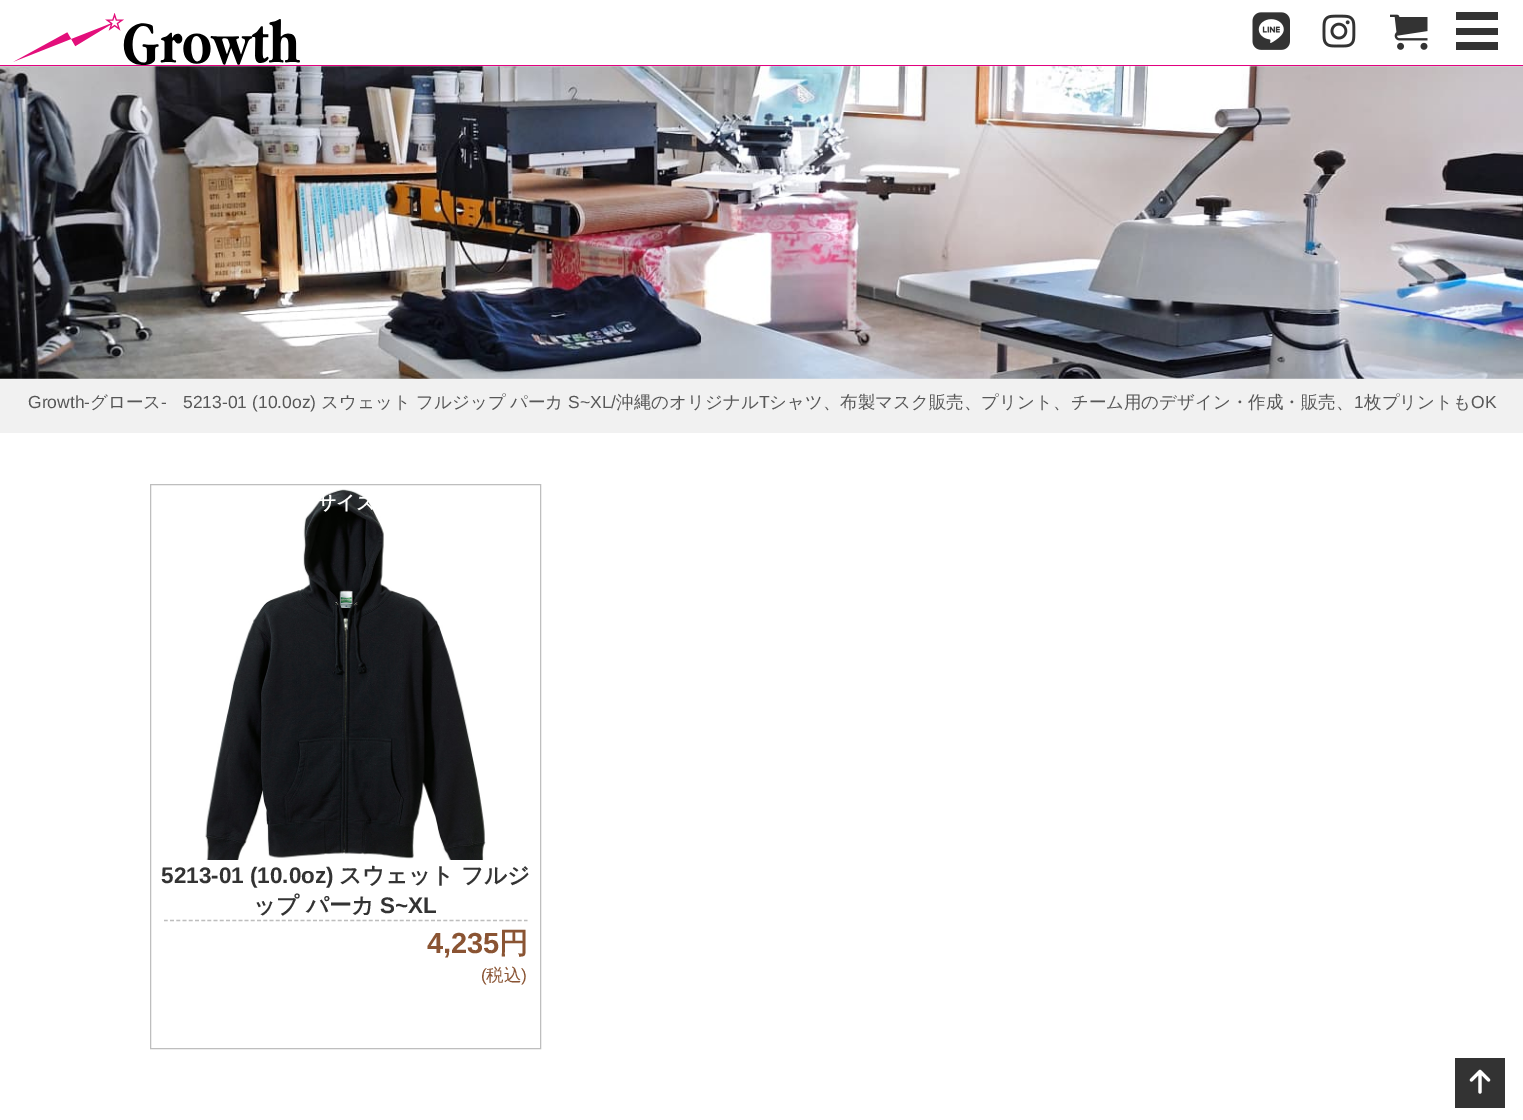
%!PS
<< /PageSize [1523 1120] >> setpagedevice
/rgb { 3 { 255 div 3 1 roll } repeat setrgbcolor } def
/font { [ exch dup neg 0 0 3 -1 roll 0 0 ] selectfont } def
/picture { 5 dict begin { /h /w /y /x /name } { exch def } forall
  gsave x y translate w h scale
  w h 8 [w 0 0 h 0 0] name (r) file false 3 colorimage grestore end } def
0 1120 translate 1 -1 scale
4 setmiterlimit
255 255 255 rgb
0 0 1523 1120 rectfill
241 241 241 rgb
0 66 1523 367 rectfill
227 0 127 rgb
0 65 1523 1 rectfill
(img/1.rgb) 13 13 287 52 picture
(img/2.rgb) 1252 12 38 38 picture
(img/3.rgb) 1322 14 34 34 picture
(img/4.rgb) 1390 14 38 36 picture
51 51 51 rgb
1456 12 moveto 1498 12 lineto 1498 20 lineto 1456 20 lineto closepath 1456 28 moveto 1498 28 lineto 1498 35 lineto 1456 35 lineto closepath 1456 42 moveto 1498 42 lineto 1498 50 lineto 1456 50 lineto closepath fill
(img/5.rgb) 0 66 1523 313 picture
190 190 190 rgb
150.5 484.5 390 564 rectstroke
(img/6.rgb) 205 489 281 371 picture
1.2 setlinewidth
[3.75 2.46] 0 setdash
164 920.5 moveto 527.5 920.5 lineto stroke
51 51 51 rgb
1455 1058 50 50 rectfill
(img/7.rgb) 1469 1069 22 25 picture
/LiberationSans-Regular 17.5 font
87 87 87 rgb
28 408 moveto (Growth-) show
/WenQuanYiZenHei-Medium 17.5 font
90 408 moveto (グロース) show
/LiberationSans-Regular 17.5 font
161 408 moveto (-) show
183 408 moveto (5213-01 \(10.0oz\)) show
/WenQuanYiZenHei-Medium 17.5 font
[
  [(スウェット) 321 408]
  [(フルジップ) 416 408]
  [(パーカ) 510 408]
] { aload pop moveto show } forall
/LiberationSans-Regular 17.5 font
568 408 moveto (S~XL/) show
/WenQuanYiZenHei-Medium 17.5 font
616 408 moveto (沖縄のオリジナル) show
/LiberationSans-Regular 17.5 font
759 408 moveto (T) show
/WenQuanYiZenHei-Medium 17.5 font
769 408 moveto (シャツ、布製マスク販売、プリント、チーム用のデザイン・作成・販売、) show
/LiberationSans-Regular 17.5 font
1354 408 moveto (1) show
/WenQuanYiZenHei-Medium 17.5 font
1364 408 moveto (枚プリントも) show
/LiberationSans-Regular 17.5 font
1471 408 moveto (OK) show
/WenQuanYiZenHei-Bold 19 font
255 255 255 rgb
317 509 moveto (サイズ) show
/LiberationSans-Bold 22.5 font
51 51 51 rgb
161 883 moveto (5213-01 \(10.0oz\)) show
/WenQuanYiZenHei-Bold 22.5 font
[
  [(スウェット) 339 883]
  [(フルジ) 461 883]
  [(ップ パーカ) 253 913]
] { aload pop moveto show } forall
/LiberationSans-Bold 22.5 font
380 913 moveto (S~XL) show
/LiberationSans-Bold 29 font
138 84 51 rgb
427 953 moveto (4,235) show
/WenQuanYiZenHei-Bold 29 font
499 953 moveto (円) show
/LiberationSans-Regular 17.5 font
481 981 moveto (\() show
/WenQuanYiZenHei-Medium 17.5 font
486 981 moveto (税込) show
/LiberationSans-Regular 17.5 font
521 981 moveto (\)) show
showpage
